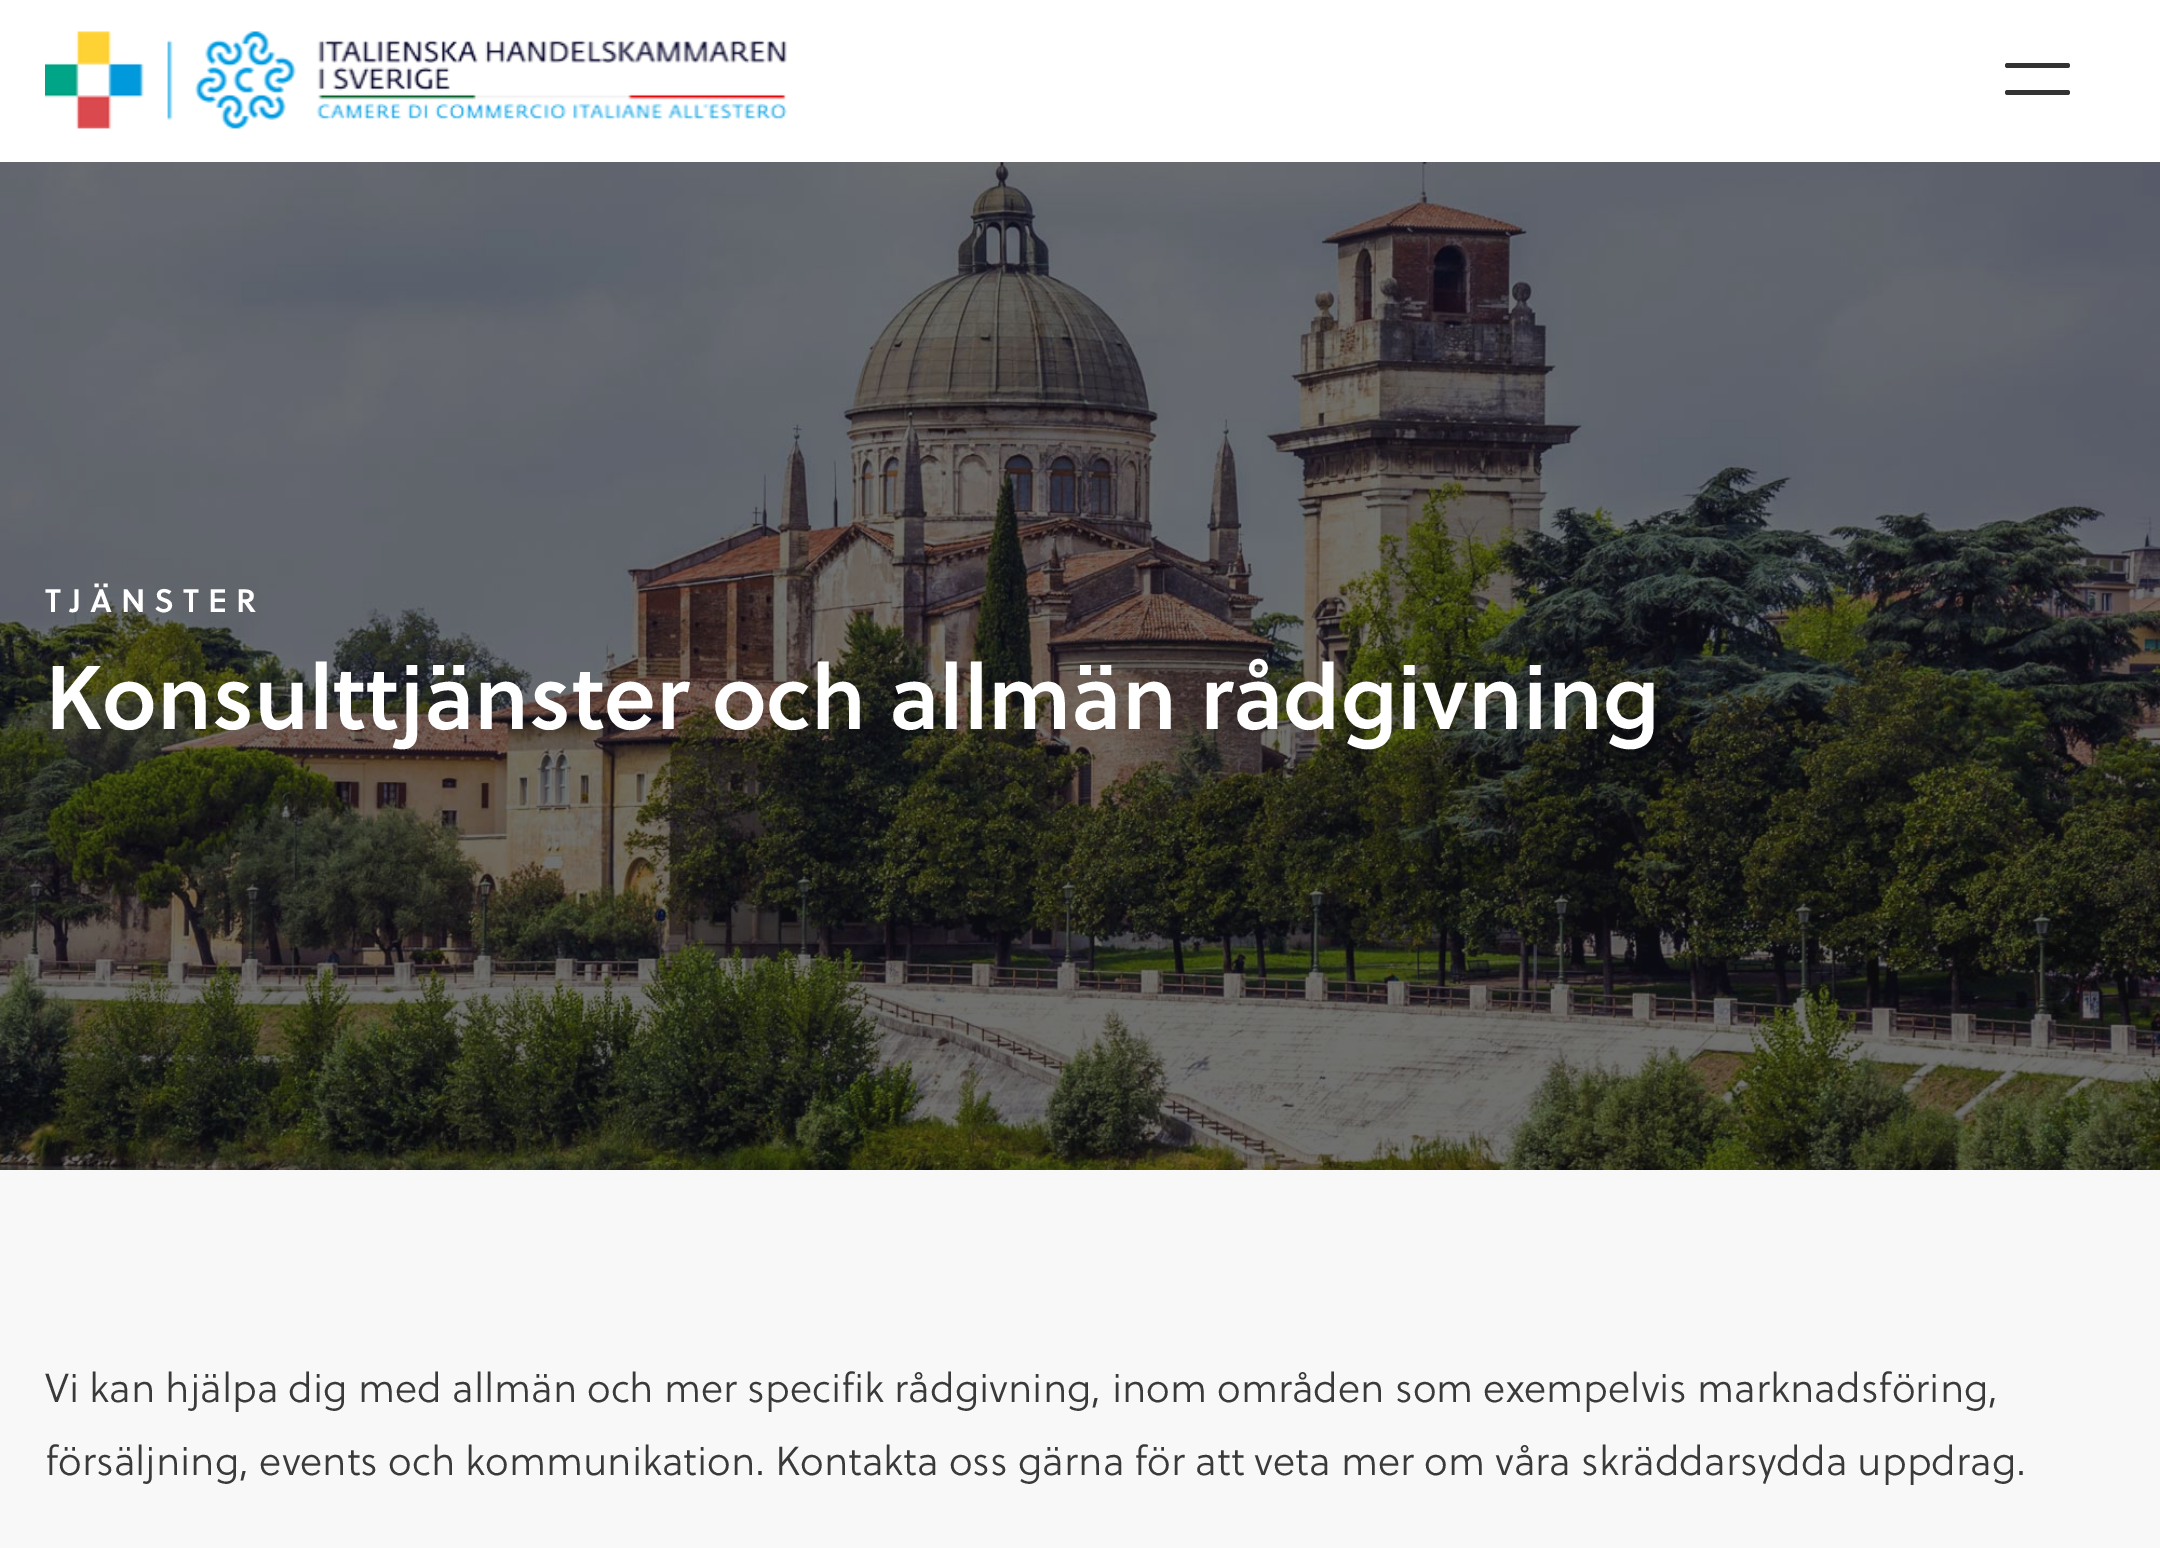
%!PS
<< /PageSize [2160 1548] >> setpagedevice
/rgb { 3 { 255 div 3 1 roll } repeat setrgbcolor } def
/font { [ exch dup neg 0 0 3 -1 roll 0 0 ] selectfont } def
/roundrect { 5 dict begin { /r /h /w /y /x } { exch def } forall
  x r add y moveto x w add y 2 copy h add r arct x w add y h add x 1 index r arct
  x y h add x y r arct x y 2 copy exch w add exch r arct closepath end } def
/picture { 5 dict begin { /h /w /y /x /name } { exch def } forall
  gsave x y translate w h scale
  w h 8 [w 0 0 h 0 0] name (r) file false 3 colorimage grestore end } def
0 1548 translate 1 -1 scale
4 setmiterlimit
255 255 255 rgb
0 0 2160 1548 rectfill
(img/1.rgb) 45 31 742 98 picture
51 51 51 rgb
2005 63 65 5 2.5 roundrect fill
2005 90 65 5 2.5 roundrect fill
(img/2.rgb) 0 162 2160 1008 picture
248 248 248 rgb
0 1170 2160 378 rectfill
/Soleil-SemiBold 32.5 font
255 255 255 rgb
45 612 moveto 9 0 (TJÄNSTER) ashow
/Soleil-SemiBold 90 font
45 729 moveto (Konsulttjänster och allmän rådgivning) show
/Soleil-Light 40.5 font
58 58 58 rgb
45 1402 moveto (Vi kan hjälpa dig med allmän och mer specifik rådgivning, inom områden som exempelvis marknadsföring,) show
45 1475 moveto (försäljning, events och kommunikation. Kontakta oss gärna för att veta mer om våra skräddarsydda uppdrag.) show
showpage
